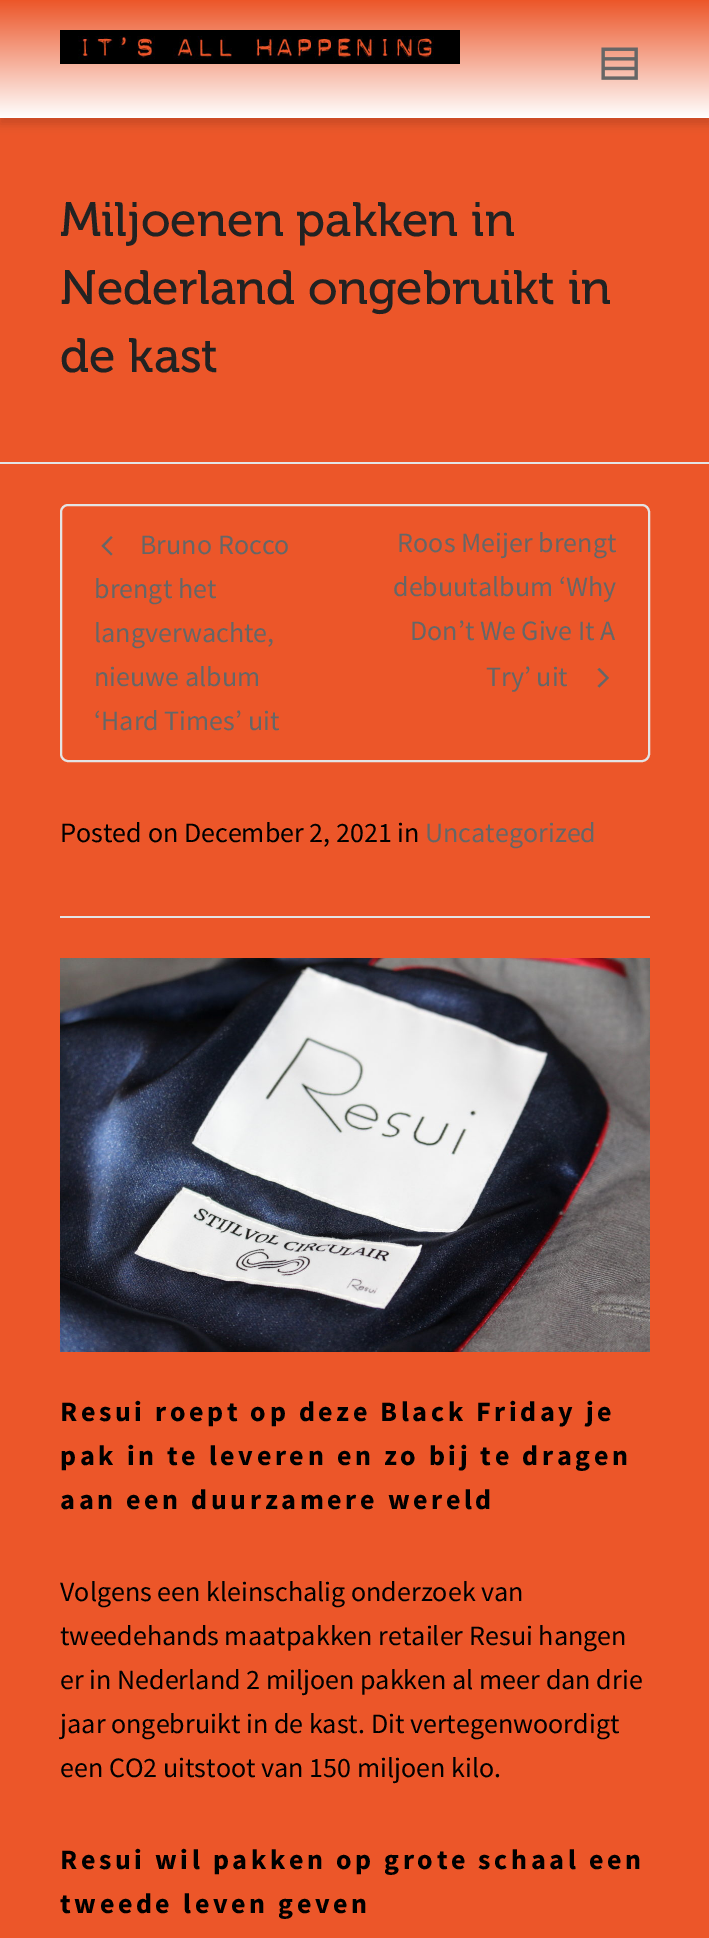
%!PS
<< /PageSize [709 1938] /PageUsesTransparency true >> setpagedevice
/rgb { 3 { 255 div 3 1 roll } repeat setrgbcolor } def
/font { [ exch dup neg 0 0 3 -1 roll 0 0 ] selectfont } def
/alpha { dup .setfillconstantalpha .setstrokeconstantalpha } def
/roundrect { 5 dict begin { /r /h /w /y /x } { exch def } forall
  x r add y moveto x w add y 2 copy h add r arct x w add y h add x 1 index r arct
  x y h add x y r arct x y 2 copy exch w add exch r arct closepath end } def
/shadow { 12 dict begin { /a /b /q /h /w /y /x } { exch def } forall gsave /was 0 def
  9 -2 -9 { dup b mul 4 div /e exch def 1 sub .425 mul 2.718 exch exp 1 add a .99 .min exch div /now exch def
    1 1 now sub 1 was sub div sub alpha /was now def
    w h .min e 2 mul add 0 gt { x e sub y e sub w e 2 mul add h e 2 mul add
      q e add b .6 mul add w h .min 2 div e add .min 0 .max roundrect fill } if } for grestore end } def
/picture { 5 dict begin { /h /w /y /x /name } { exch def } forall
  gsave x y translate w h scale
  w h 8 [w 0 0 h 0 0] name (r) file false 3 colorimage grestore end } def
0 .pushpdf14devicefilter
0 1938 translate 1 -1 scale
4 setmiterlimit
236 86 41 rgb
0 0 709 1938 rectfill
0 0 0 rgb
0 6 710 118 0 5 0.1 shadow
0 6 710 118 0 5 0.05 shadow
gsave 0 0 moveto 709 0 lineto 709 118 lineto 0 118 lineto closepath clip newpath
<< /ShadingType 2 /ColorSpace /DeviceRGB /Coords [355 0 355 118] /Extend [true true] /Function << /FunctionType 2 /Domain [0 1] /C0 [0.925 0.337 0.161] /C1 [1 1 1] /N 1 >> >> shfill grestore
(img/1.rgb) 60 30 400 34 picture
(img/2.rgb) 601 47 37 33 picture
228 228 228 rgb
0 462 709 2 rectfill
2 setlinewidth
61 505 588 256 7 roundrect stroke
102 102 102 rgb
111 555.5 moveto 101.5 546 lineto 111 536 lineto 112.5 537.5 lineto 104.5 546 lineto 112.5 554 lineto closepath fill
599.5 687.5 moveto 597.5 686 lineto 606 678 lineto 597.5 669.5 lineto 599.5 668 lineto 609 678 lineto closepath fill
228 228 228 rgb
60 916 590 2 rectfill
(img/3.rgb) 60 958 590 394 picture
/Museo-Regular 48 font
34 34 34 rgb
[
  [(Miljoenen pakken in) 60 236]
  [(Nederland ongebruikt in) 60 304]
  [(de kast) 60 372]
] { aload pop moveto show } forall
/SourceSansPro-Regular 28 font
102 102 102 rgb
[
  [(Bruno Rocco) 140 554]
  [(brengt het) 94 598]
  [(langverwachte,) 94 642]
  [(nieuwe album) 94 686]
  [(‘Hard Times’ uit) 94 730]
  [(Roos Meijer brengt) 397 552]
  [(debuutalbum ‘Why) 393 596]
  [(Don’t We Give It A) 410 640]
  [(Try’ uit) 486 686]
] { aload pop moveto show } forall
0 0 0 rgb
60 842 moveto (Posted on December 2, 2021 in) show
102 102 102 rgb
425 842 moveto (Uncategorized) show
/SourceSansPro-Bold 28 font
0 0 0 rgb
60 1421 moveto 3.6 0 (Resui roept op deze Black Friday je) ashow
60 1465 moveto 3.6 0 (pak in te leveren en zo bij te dragen) ashow
60 1509 moveto 3.6 0 (aan een duurzamere wereld) ashow
/SourceSansPro-Regular 28 font
[
  [(Volgens een kleinschalig onderzoek van) 60 1601]
  [(tweedehands maatpakken retailer Resui hangen) 60 1645]
  [(er in Nederland 2 miljoen pakken al meer dan drie) 60 1689]
  [(jaar ongebruikt in de kast. Dit vertegenwoordigt) 60 1733]
  [(een CO2 uitstoot van 150 miljoen kilo.) 60 1777]
] { aload pop moveto show } forall
/SourceSansPro-Bold 28 font
60 1869 moveto 3.6 0 (Resui wil pakken op grote schaal een) ashow
60 1913 moveto 3.6 0 (tweede leven geven) ashow
.poppdf14devicefilter showpage
